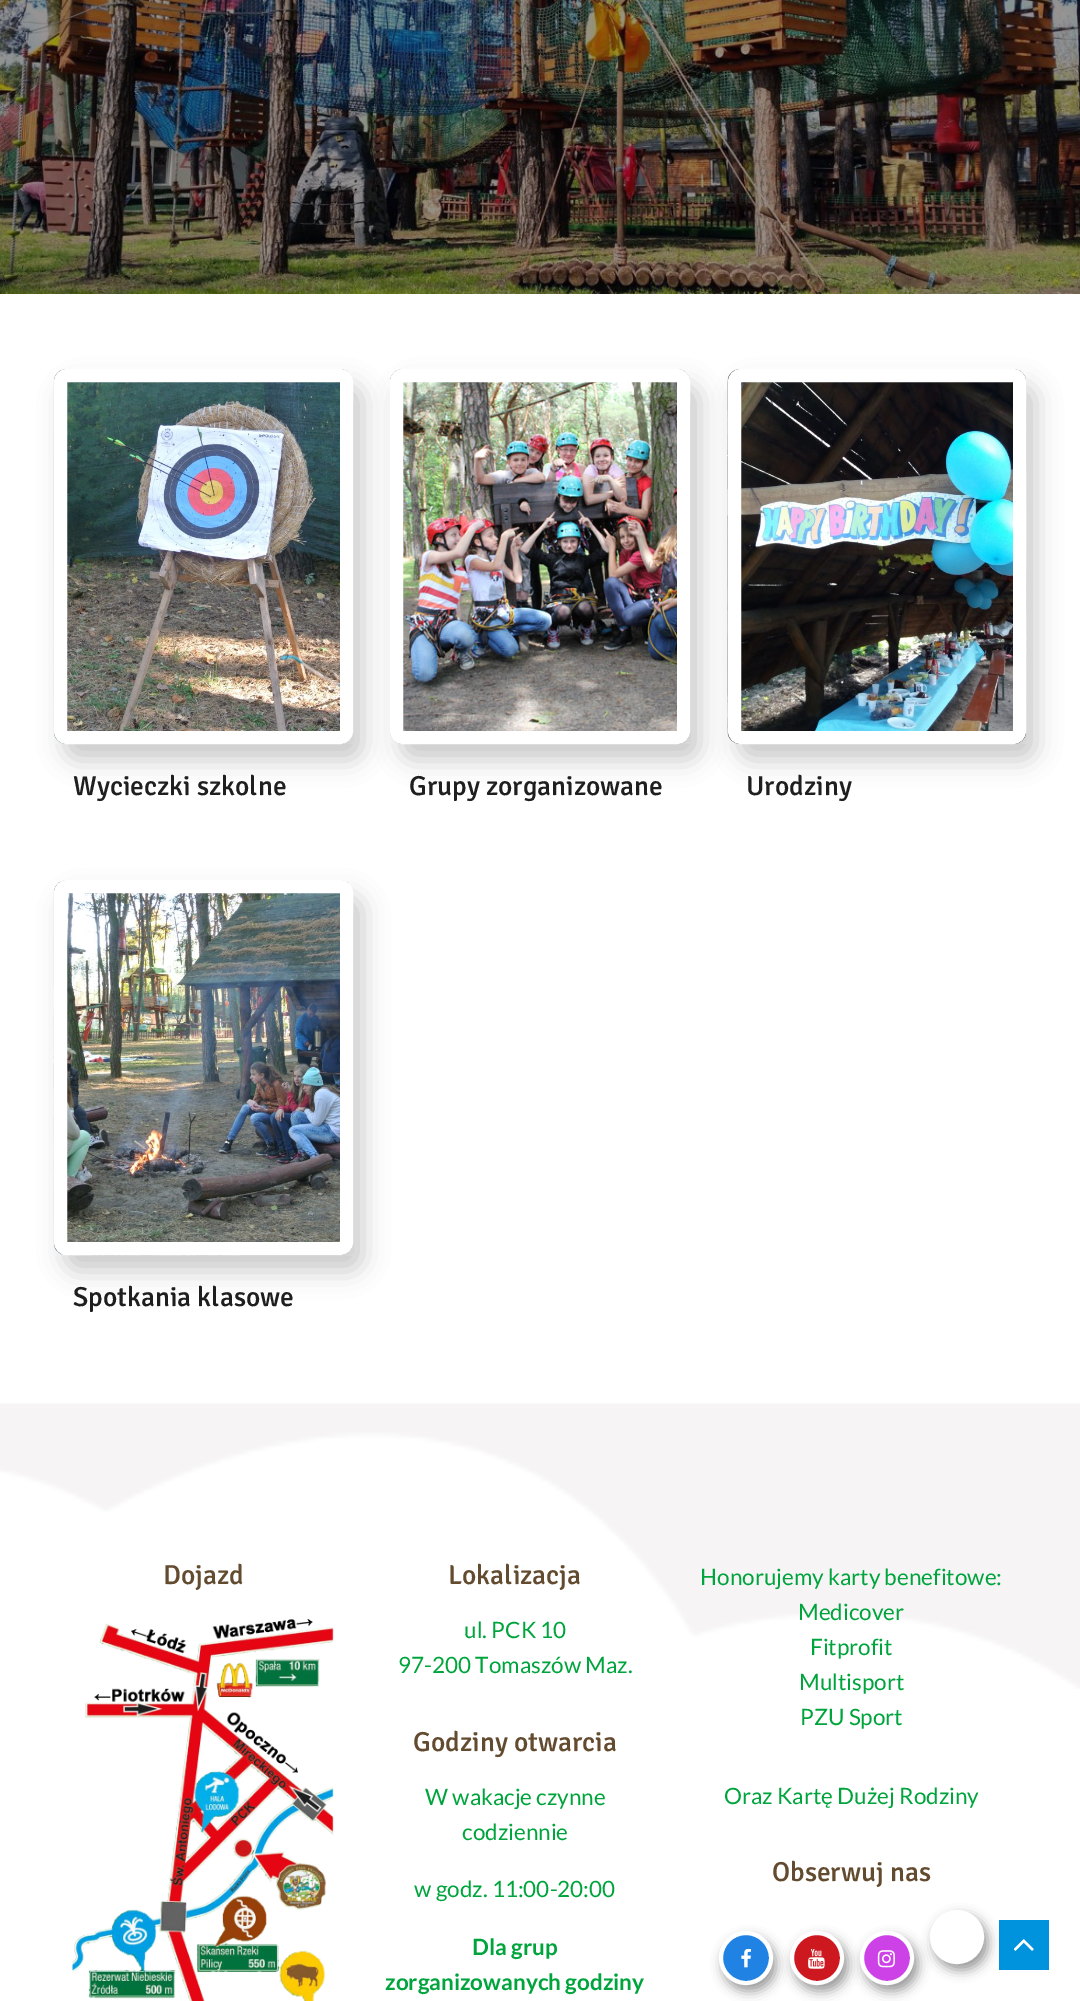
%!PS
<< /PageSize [1080 2001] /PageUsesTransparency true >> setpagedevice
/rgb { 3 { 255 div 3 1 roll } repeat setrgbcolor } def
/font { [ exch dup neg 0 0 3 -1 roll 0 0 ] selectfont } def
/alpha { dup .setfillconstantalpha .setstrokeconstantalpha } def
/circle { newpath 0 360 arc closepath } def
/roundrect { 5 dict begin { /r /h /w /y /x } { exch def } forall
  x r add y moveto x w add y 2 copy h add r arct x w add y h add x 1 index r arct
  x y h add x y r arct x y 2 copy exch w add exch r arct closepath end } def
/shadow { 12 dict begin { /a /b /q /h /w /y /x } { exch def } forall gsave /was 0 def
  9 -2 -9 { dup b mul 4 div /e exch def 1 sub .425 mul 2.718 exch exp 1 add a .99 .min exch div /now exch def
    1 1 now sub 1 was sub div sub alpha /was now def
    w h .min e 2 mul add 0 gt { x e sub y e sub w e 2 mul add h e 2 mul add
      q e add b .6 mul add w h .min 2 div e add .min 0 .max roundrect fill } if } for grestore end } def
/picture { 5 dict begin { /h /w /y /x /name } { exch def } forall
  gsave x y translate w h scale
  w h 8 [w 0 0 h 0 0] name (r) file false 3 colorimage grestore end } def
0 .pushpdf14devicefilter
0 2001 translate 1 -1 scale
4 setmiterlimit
255 255 255 rgb
0 0 1080 2001 rectfill
(img/1.rgb) 0 0 1080 294 picture
0 0 0 rgb
64 385 299 375 13 12.5 0.21 shadow
(img/2.rgb) 53 369 300 375 picture
255 255 255 rgb
13 setlinewidth
60.5 375.5 286 362 6.5 roundrect stroke
0 0 0 rgb
400 385 300 375 13 12.5 0.21 shadow
(img/3.rgb) 390 369 300 375 picture
255 255 255 rgb
396.5 375.5 287 362 6.5 roundrect stroke
0 0 0 rgb
738 385 298 375 13 12.5 0.21 shadow
(img/4.rgb) 727 369 300 375 picture
255 255 255 rgb
734.5 375.5 285 362 6.5 roundrect stroke
0 0 0 rgb
64 896 299 375 13 12.5 0.21 shadow
(img/5.rgb) 53 880 300 376 picture
255 255 255 rgb
60.5 886.5 286 362 6.5 roundrect stroke
(img/6.rgb) 0 1403 1080 286 picture
(img/7.rgb) 72 1619 262 382 picture
0 0 0 rgb
723 1938 53 53 26.5 6 0.4 shadow
32 130 227 rgb
746 1958 25 circle gsave fill grestore
255 255 255 rgb
4 setlinewidth
stroke
(img/8.rgb) 741 1949 10 19 picture
0 0 0 rgb
794 1938 54 53 26.5 6 0.4 shadow
204 24 30 rgb
817 1958 25 circle gsave fill grestore
255 255 255 rgb
stroke
(img/9.rgb) 808 1949 17 20 picture
0 0 0 rgb
864 1938 54 53 26.5 6 0.4 shadow
205 66 231 rgb
887 1958 25 circle gsave fill grestore
255 255 255 rgb
stroke
(img/10.rgb) 877 1950 18 18 picture
gsave
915 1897 moveto 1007 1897 lineto 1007 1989 lineto 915 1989 lineto closepath 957 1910 moveto 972 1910 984 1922 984 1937 curveto 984 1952 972 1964 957 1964 curveto 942 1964 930 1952 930 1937 curveto 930 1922 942 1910 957 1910 curveto closepath eoclip newpath
0 0 0 rgb
934 1916 54 54 27 6 0.4 shadow
grestore
957 1937 25 circle stroke
0 147 221 rgb
999 1920 50 50 rectfill
(img/11.rgb) 1014 1939 20 12 picture
/Signika-Light 27.5 font
32 31 32 rgb
[
  [(Wycieczki szkolne) 73 795]
  [(Grupy zorganizowane) 409 795]
  [(Urodziny) 746 795]
  [(Spotkania klasowe) 73 1306]
] { aload pop moveto show } forall
99 75 47 rgb
163 1584 moveto (Dojazd) show
448 1584 moveto (Lokalizacja) show
/Lato-Regular 22.5 font
0 164 60 rgb
464 1638 moveto (ul. PCK 10) show
398 1673 moveto (97-200 Tomaszów Maz.) show
/Signika-Light 27.5 font
99 75 47 rgb
413 1751 moveto (Godziny otwarcia) show
/Lato-Regular 22.5 font
0 164 60 rgb
[
  [(W wakacje czynne) 425 1805]
  [(codziennie) 462 1840]
  [(w godz. 11:00-20:00) 414 1897]
] { aload pop moveto show } forall
/Lato-Bold 22.5 font
472 1955 moveto (Dla grup) show
385 1990 moveto (zorganizowanych godziny) show
/Lato-Regular 22.5 font
[
  [(Honorujemy karty benefitowe:) 700 1585]
  [(Medicover) 798 1620]
  [(Fitprofit) 810 1655]
  [(Multisport) 799 1690]
  [(PZU Sport) 800 1725]
  [(Oraz Kartę Dużej Rodziny) 724 1804]
] { aload pop moveto show } forall
/Signika-Light 27.5 font
99 75 47 rgb
772 1881 moveto (Obserwuj nas) show
.poppdf14devicefilter showpage
